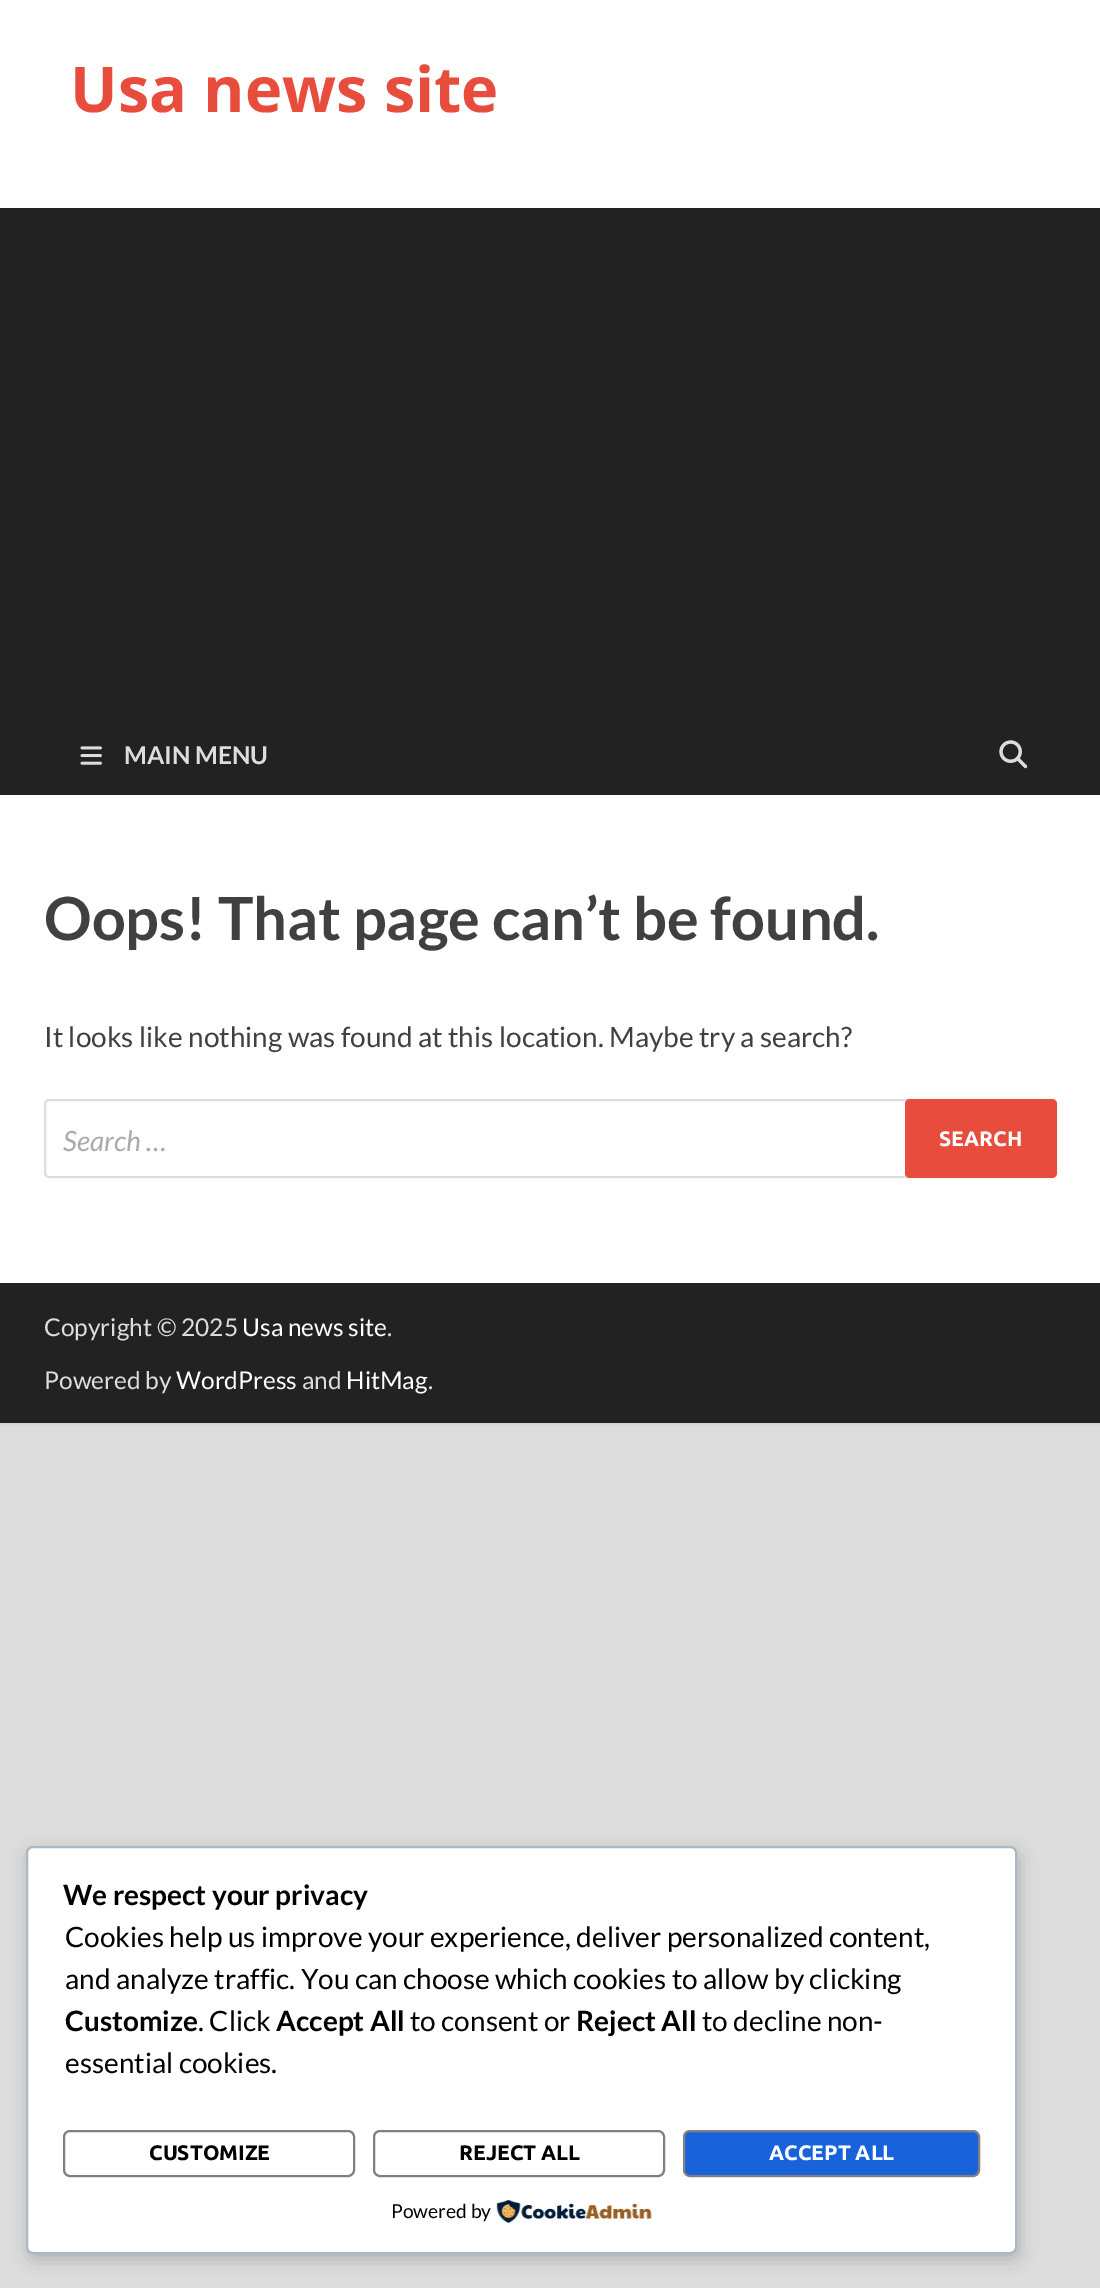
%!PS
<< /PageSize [1100 2288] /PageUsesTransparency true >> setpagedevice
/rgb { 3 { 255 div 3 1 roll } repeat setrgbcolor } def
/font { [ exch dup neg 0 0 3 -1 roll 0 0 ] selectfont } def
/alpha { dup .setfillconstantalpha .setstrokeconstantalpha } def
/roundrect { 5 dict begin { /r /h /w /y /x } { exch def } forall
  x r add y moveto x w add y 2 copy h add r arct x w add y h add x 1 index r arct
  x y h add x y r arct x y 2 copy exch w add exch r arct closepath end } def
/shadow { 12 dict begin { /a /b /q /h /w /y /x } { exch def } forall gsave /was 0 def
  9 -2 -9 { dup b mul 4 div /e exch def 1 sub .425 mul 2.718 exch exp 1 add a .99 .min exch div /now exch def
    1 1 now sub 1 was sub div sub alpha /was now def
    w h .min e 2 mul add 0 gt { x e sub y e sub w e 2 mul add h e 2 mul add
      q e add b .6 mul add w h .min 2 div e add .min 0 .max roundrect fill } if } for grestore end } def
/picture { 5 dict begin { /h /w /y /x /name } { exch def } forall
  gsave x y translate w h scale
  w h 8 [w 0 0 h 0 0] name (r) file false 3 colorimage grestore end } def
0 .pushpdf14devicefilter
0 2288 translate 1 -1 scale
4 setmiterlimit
221 221 221 rgb
0 0 1100 2288 rectfill
187 187 187 rgb
0 0 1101 1423 0 2 1 shadow
255 255 255 rgb
0 0 1100 1283 rectfill
34 34 34 rgb
0 208 1100 587 rectfill
(img/1.rgb) 80 746 22 19 picture
(img/2.rgb) 999 740 29 29 picture
221 221 221 rgb
2 setlinewidth
45 1100 1011 77 4 roundrect stroke
231 76 60 rgb
905 1099 152 79 5 roundrect fill
34 34 34 rgb
0 1283 1100 140 rectfill
0 0 0 rgb
28 1852 991 407 7 9 0.2 shadow
255 255 255 rgb
27 1847 989 406 6 roundrect gsave fill grestore
171 184 195 rgb
stroke
128 128 128 rgb
64 2131 290 45 6 roundrect stroke
374 2131 290 45 6 roundrect stroke
24 99 220 rgb
684 2131 295 45 6 roundrect gsave fill grestore
128 128 128 rgb
stroke
(img/3.rgb) 496 2199 156 24 picture
/OpenSans-Bold 63 font
231 76 60 rgb
70 112 moveto (Usa news site) show
/Lato-Bold 24.5 font
221 221 221 rgb
124 764 moveto (MAIN MENU) show
/Lato-Bold 59.5 font
64 64 64 rgb
44 940 moveto (Oops! That page can’t be found.) show
/Lato-Regular 28 font
44 1047 moveto (It looks like nothing was found at this location. Maybe try a search?) show
/Lato-Italic 28 font
170 170 170 rgb
63 1151 moveto (Search …) show
/Ubuntu-Bold 21 font
255 255 255 rgb
939 1146 moveto (SEARCH) show
/Lato-Regular 24.5 font
221 221 221 rgb
44 1336 moveto (Copyright © 2025) show
255 255 255 rgb
242 1336 moveto (Usa news site) show
221 221 221 rgb
387 1336 moveto (.) show
44 1389 moveto (Powered by) show
255 255 255 rgb
176 1389 moveto (WordPress) show
221 221 221 rgb
302 1389 moveto (and) show
255 255 255 rgb
346 1389 moveto (HitMag) show
221 221 221 rgb
428 1389 moveto (.) show
/Lato-Bold 28 font
0 0 0 rgb
63 1905 moveto (We respect your privacy) show
/Lato-Regular 28 font
65 1947 moveto (Cookies help us improve your experience, deliver personalized content,) show
65 1989 moveto (and analyze traffic. You can choose which cookies to allow by clicking) show
/Lato-Bold 28 font
65 2031 moveto (Customize) show
/Lato-Regular 28 font
198 2031 moveto (. Click) show
/Lato-Bold 28 font
276 2031 moveto (Accept All) show
/Lato-Regular 28 font
410 2031 moveto (to consent or) show
/Lato-Bold 28 font
576 2031 moveto (Reject All) show
/Lato-Regular 28 font
702 2031 moveto (to decline non-) show
65 2073 moveto (essential cookies.) show
/Ubuntu-Bold 21 font
149 2160 moveto (CUSTOMIZE) show
459 2160 moveto (REJECT ALL) show
255 255 255 rgb
769 2160 moveto (ACCEPT ALL) show
/Lato-Regular 19.25 font
0 0 0 rgb
391 2218 moveto (Powered by) show
.poppdf14devicefilter showpage
